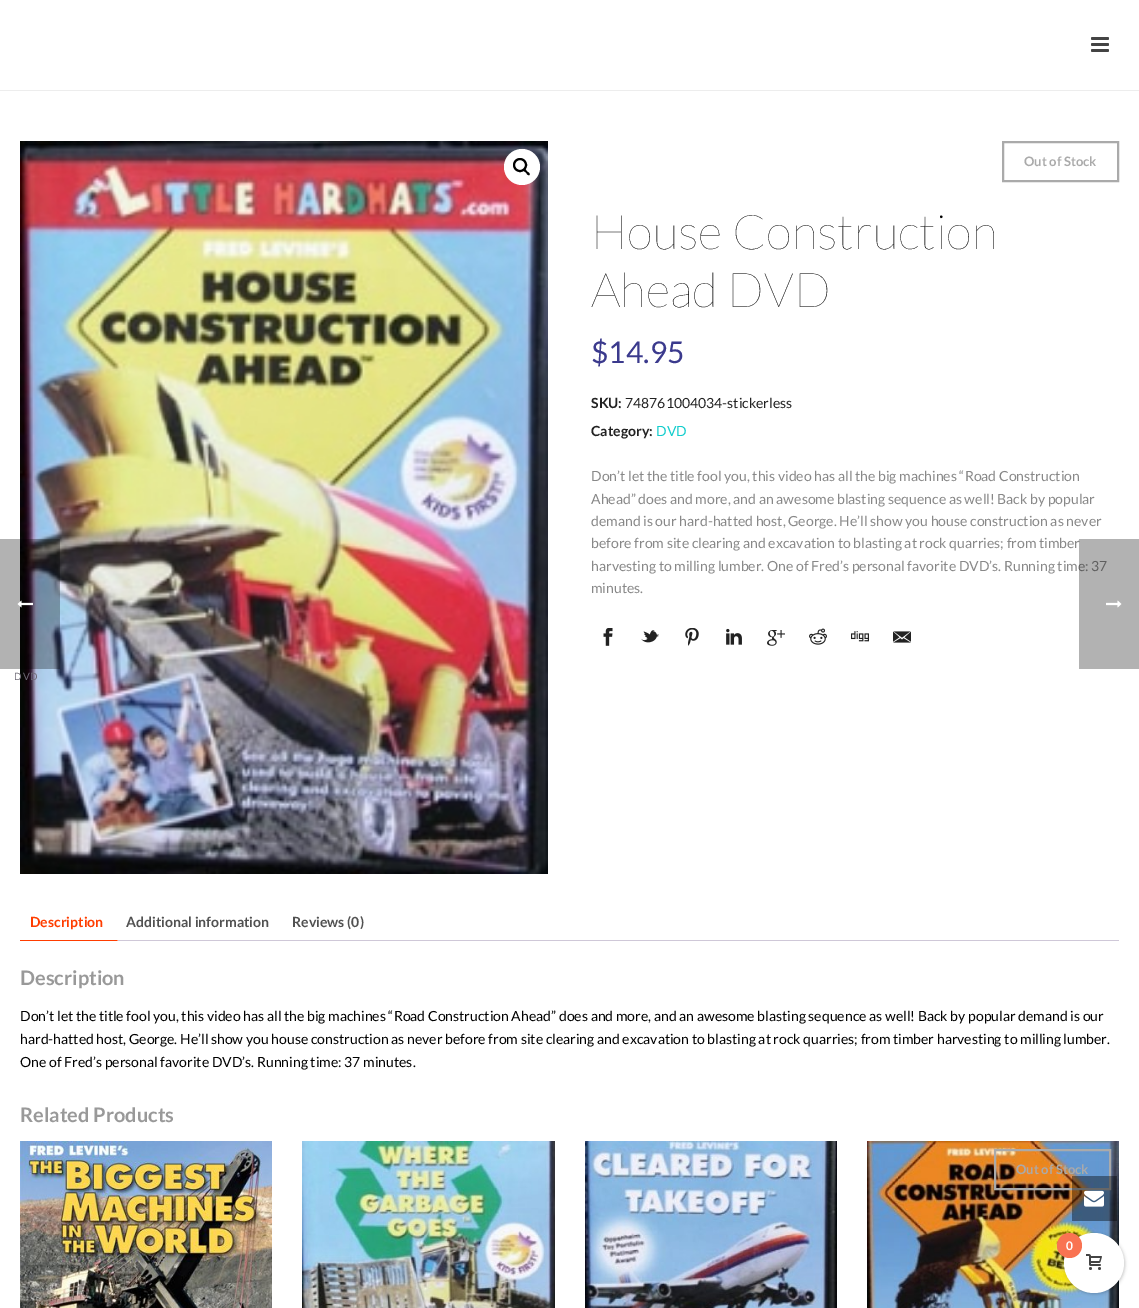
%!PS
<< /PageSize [1139 1308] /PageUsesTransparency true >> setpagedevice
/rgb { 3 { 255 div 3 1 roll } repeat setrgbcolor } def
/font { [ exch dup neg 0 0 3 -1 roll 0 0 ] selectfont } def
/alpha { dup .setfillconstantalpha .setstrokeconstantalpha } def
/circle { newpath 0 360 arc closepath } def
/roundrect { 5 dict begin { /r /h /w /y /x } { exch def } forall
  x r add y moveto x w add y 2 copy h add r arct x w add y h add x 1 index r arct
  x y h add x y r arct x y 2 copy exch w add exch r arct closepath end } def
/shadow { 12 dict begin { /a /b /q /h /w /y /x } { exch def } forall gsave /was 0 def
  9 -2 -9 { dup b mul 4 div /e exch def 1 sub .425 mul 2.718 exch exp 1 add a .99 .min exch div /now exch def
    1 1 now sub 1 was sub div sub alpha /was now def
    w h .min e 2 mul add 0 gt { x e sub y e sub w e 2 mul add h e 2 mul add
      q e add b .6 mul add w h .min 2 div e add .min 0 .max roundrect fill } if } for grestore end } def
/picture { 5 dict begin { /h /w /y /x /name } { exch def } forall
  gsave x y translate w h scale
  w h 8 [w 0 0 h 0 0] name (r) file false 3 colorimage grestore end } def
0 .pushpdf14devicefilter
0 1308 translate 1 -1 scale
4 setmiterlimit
255 255 255 rgb
0 0 1139 1308 rectfill
237 237 237 rgb
0 90 1139 1 rectfill
68 68 68 rgb
1091 37 18 3 1.5 roundrect fill
1091 43 18 3 1.5 roundrect fill
1091 49 18 3 1.5 roundrect fill
(img/1.rgb) 20 141 528 733 picture
255 255 255 rgb
522 167 18 circle fill
0 0 0 rgb
2 setlinewidth
520 165 6 circle stroke
523.5 169 moveto 525 168 526.5 170.5 527 171.5 curveto 528 172 530.5 173.5 529.5 175 curveto 528 176 526.5 173.5 526 172.5 curveto 525 172 522.5 170.5 523.5 169 curveto closepath fill
170 170 170 rgb
1003 142 115 39 rectstroke
(img/2.rgb) 603 628 10 18 picture
(img/3.rgb) 641 630 18 13 picture
(img/4.rgb) 685 628 14 18 picture
(img/5.rgb) 726 628 16 17 picture
(img/6.rgb) 767 630 18 16 picture
(img/7.rgb) 809 628 18 17 picture
(img/8.rgb) 851 631 18 11 picture
(img/9.rgb) 893 631 18 12 picture
gsave
20 902 1099 39 rectclip
255 61 0 rgb
118 941 moveto 15 941 lineto 16 940 lineto 117 940 lineto closepath fill
grestore
207 200 216 rgb
118 940 1001 1 rectfill
(img/10.rgb) 20 1141 252 167 picture
(img/11.rgb) 302 1141 253 167 picture
(img/12.rgb) 585 1141 252 167 picture
(img/13.rgb) 867 1141 252 167 picture
170 170 170 rgb
995 1150 115 39 rectstroke
0.3 alpha
0 0 0 rgb
0 539 60 130 rectfill
1 alpha
(img/15.rgb) 17 600 16 8 picture
0.4 alpha
1072 1176 45 45 rectfill
1 alpha
(img/16.rgb) 1084 1190 20 17 picture
1065 1234 60 60 30 1.5 0.2 shadow
255 255 255 rgb
1094 1263 30 circle fill
249 115 82 rgb
1069.5 1245.5 12.5 circle fill
(img/17.rgb) 1086 1254 16 16 picture
/Lato-Bold 13 font
170 170 170 rgb
1024 166 moveto (Out of Stock) show
/Lato-Thin 48 font
0 0 0 rgb
591 249 moveto (House Construction) show
591 307 moveto (Ahead DVD) show
/Lato-Regular 30 font
59 58 141 rgb
591 363 moveto ($14.95) show
/Lato-Bold 14 font
34 34 34 rgb
591 408 moveto (SKU:) show
/Lato-Regular 14 font
625 408 moveto (748761004034-stickerless) show
/Lato-Bold 14 font
591 436 moveto (Category:) show
/Lato-Regular 14 font
18 205 204 rgb
656 436 moveto (DVD) show
136 136 136 rgb
[
  [(Don’t let the title fool you, this video has all the big machines “Road Construction) 591 481]
  [(Ahead” does and more, and an awesome blasting sequence as well! Back by popular) 591 504]
  [(demand is our hard-hatted host, George. He’ll show you house construction as never) 591 526]
  [(before from site clearing and excavation to blasting at rock quarries; from timber) 591 548]
  [(harvesting to milling lumber. One of Fred’s personal favorite DVD’s. Running time: 37) 591 571]
  [(minutes.) 591 593]
] { aload pop moveto show } forall
/Lato-Bold 14 font
255 61 0 rgb
30 927 moveto (Description) show
81 81 81 rgb
126 927 moveto (Additional information) show
292 927 moveto (Reviews \(0\)) show
/Lato-Bold 20 font
153 153 153 rgb
20 985 moveto (Description) show
/Lato-Regular 14 font
0 0 0 rgb
[
  [(Don’t let the title fool you, this video has all the big machines “Road Construction Ahead” does and more, and an awesome blasting sequence as well! Back by popular demand is our) 20 1021]
  [(hard-hatted host, George. He’ll show you house construction as never before from site clearing and excavation to blasting at rock quarries; from timber harvesting to milling lumber.) 20 1044]
  [(One of Fred’s personal favorite DVD’s. Running time: 37 minutes.) 20 1067]
] { aload pop moveto show } forall
/Lato-Bold 20 font
153 153 153 rgb
20 1122 moveto (Related Products) show
/Lato-Bold 13 font
170 170 170 rgb
1016 1174 moveto (Out of Stock) show
0.3 alpha
0 0 0 rgb
1079 539 60 130 rectfill
1 alpha
(img/14.rgb) 1106 600 16 8 picture
/Lato-Regular 10 font
110 106 118 rgb
14 680 moveto 1 0 (DVD) ashow
/Lato-Bold 12 font
255 255 255 rgb
1066 1250 moveto (0) show
.poppdf14devicefilter showpage
